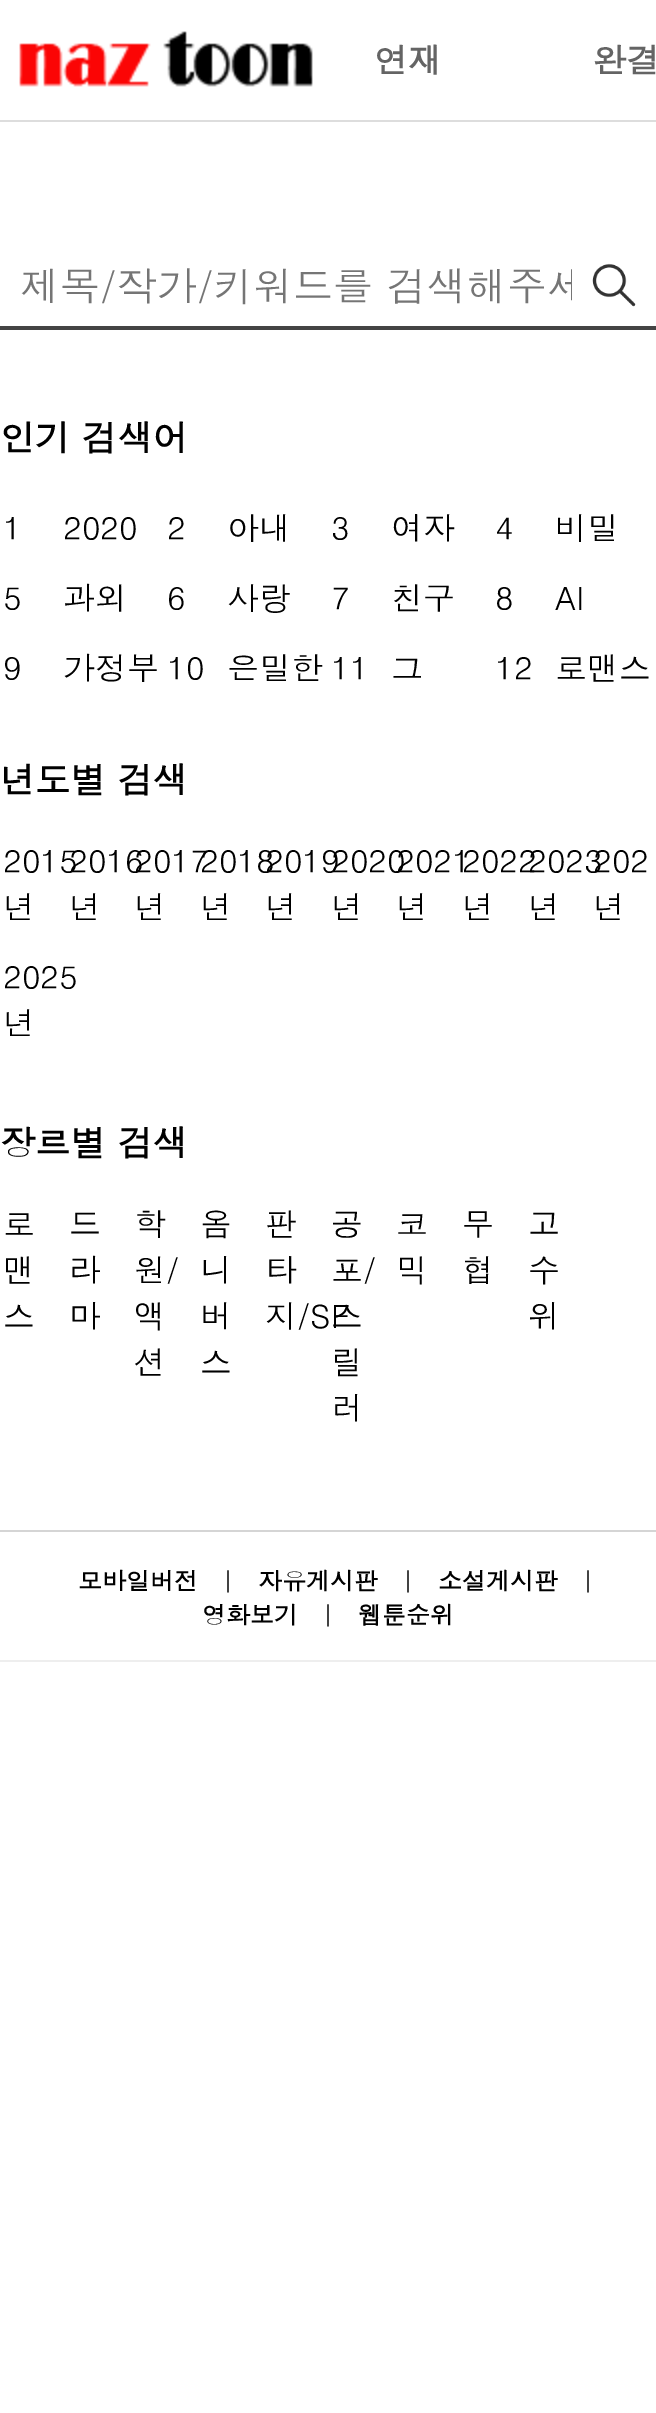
%!PS
<< /PageSize [656 2413] >> setpagedevice
/rgb { 3 { 255 div 3 1 roll } repeat setrgbcolor } def
/font { [ exch dup neg 0 0 3 -1 roll 0 0 ] selectfont } def
/picture { 5 dict begin { /h /w /y /x /name } { exch def } forall
  gsave x y translate w h scale
  w h 8 [w 0 0 h 0 0] name (r) file false 3 colorimage grestore end } def
0 2413 translate 1 -1 scale
4 setmiterlimit
255 255 255 rgb
0 0 656 2413 rectfill
221 221 221 rgb
0 120 656 2 rectfill
(img/1.rgb) 19 31 294 56 picture
68 68 68 rgb
0 326 656 4 rectfill
(img/2.rgb) 592 263 44 44 picture
213 213 213 rgb
0 1530 656 2 rectfill
238 238 238 rgb
0 1660 656 2 rectfill
/Dotum-Bold 34 font
100 100 100 rgb
374 73 moveto (연재) show
592 73 moveto (완결) show
gsave
20 256 552 58 rectclip
/Dotum-Regular 40 font
117 117 117 rgb
20 301 moveto (제목/작가/키워드를 검색해주세) show
grestore
/Dotum-Bold 35.25 font
0 0 0 rgb
0 451 moveto (인기 검색어) show
/Dotum-Regular 32 font
[
  [(1) 3 540]
  [(2020) 63 540]
  [(2) 167 540]
  [(아내) 227 540]
  [(3) 331 540]
  [(여자) 391 540]
  [(4) 495 540]
  [(비밀) 555 540]
  [(5) 3 610]
  [(과외) 63 610]
  [(6) 167 610]
  [(사랑) 227 610]
  [(7) 331 610]
  [(친구) 391 610]
  [(8) 495 610]
  [(AI) 555 610]
  [(9) 3 680]
  [(가정부) 63 680]
  [(10) 167 680]
  [(은밀한) 227 680]
  [(11) 331 680]
  [(그) 391 680]
  [(12) 495 680]
  [(로맨스) 555 680]
] { aload pop moveto show } forall
/Dotum-Bold 35.25 font
0 793 moveto (년도별 검색) show
/Dotum-Regular 32 font
[
  [(2015) 3 873]
  [(년) 3 919]
  [(2016) 69 873]
  [(년) 69 919]
  [(2017) 134 873]
  [(년) 134 919]
  [(2018) 200 873]
  [(년) 200 919]
  [(2019) 265 873]
  [(년) 265 919]
  [(2020) 331 873]
  [(년) 331 919]
  [(2021) 396 873]
  [(년) 396 919]
  [(2022) 462 873]
  [(년) 462 919]
  [(2023) 528 873]
  [(년) 528 919]
  [(202) 593 873]
  [(년) 593 919]
  [(2025) 3 989]
  [(년) 3 1035]
] { aload pop moveto show } forall
/Dotum-Bold 35.25 font
0 1156 moveto (장르별 검색) show
/Dotum-Regular 32 font
[
  [(로) 3 1236]
  [(맨) 3 1282]
  [(스) 3 1328]
  [(드) 69 1236]
  [(라) 69 1282]
  [(마) 69 1328]
  [(학) 134 1236]
  [(원/) 134 1282]
  [(액) 134 1328]
  [(션) 134 1374]
  [(옴) 200 1236]
  [(니) 200 1282]
  [(버) 200 1328]
  [(스) 200 1374]
  [(판) 265 1236]
  [(타) 265 1282]
  [(지/SF) 265 1328]
  [(공) 331 1236]
  [(포/) 331 1282]
  [(스) 331 1328]
  [(릴) 331 1374]
  [(러) 331 1420]
  [(코) 396 1236]
  [(믹) 396 1282]
  [(무) 462 1236]
  [(협) 462 1282]
  [(고) 528 1236]
  [(수) 528 1282]
  [(위) 528 1328]
] { aload pop moveto show } forall
/Dotum-Bold 24 font
78 1590 moveto (모바일버전) show
/Dotum-Regular 24 font
222 1590 moveto (|) show
/Dotum-Bold 24 font
258 1590 moveto (자유게시판) show
/Dotum-Regular 24 font
402 1590 moveto (|) show
/Dotum-Bold 24 font
438 1590 moveto (소설게시판) show
/Dotum-Regular 24 font
582 1590 moveto (|) show
/Dotum-Bold 24 font
202 1624 moveto (영화보기) show
/Dotum-Regular 24 font
322 1624 moveto (|) show
/Dotum-Bold 24 font
358 1624 moveto (웹툰순위) show
showpage
